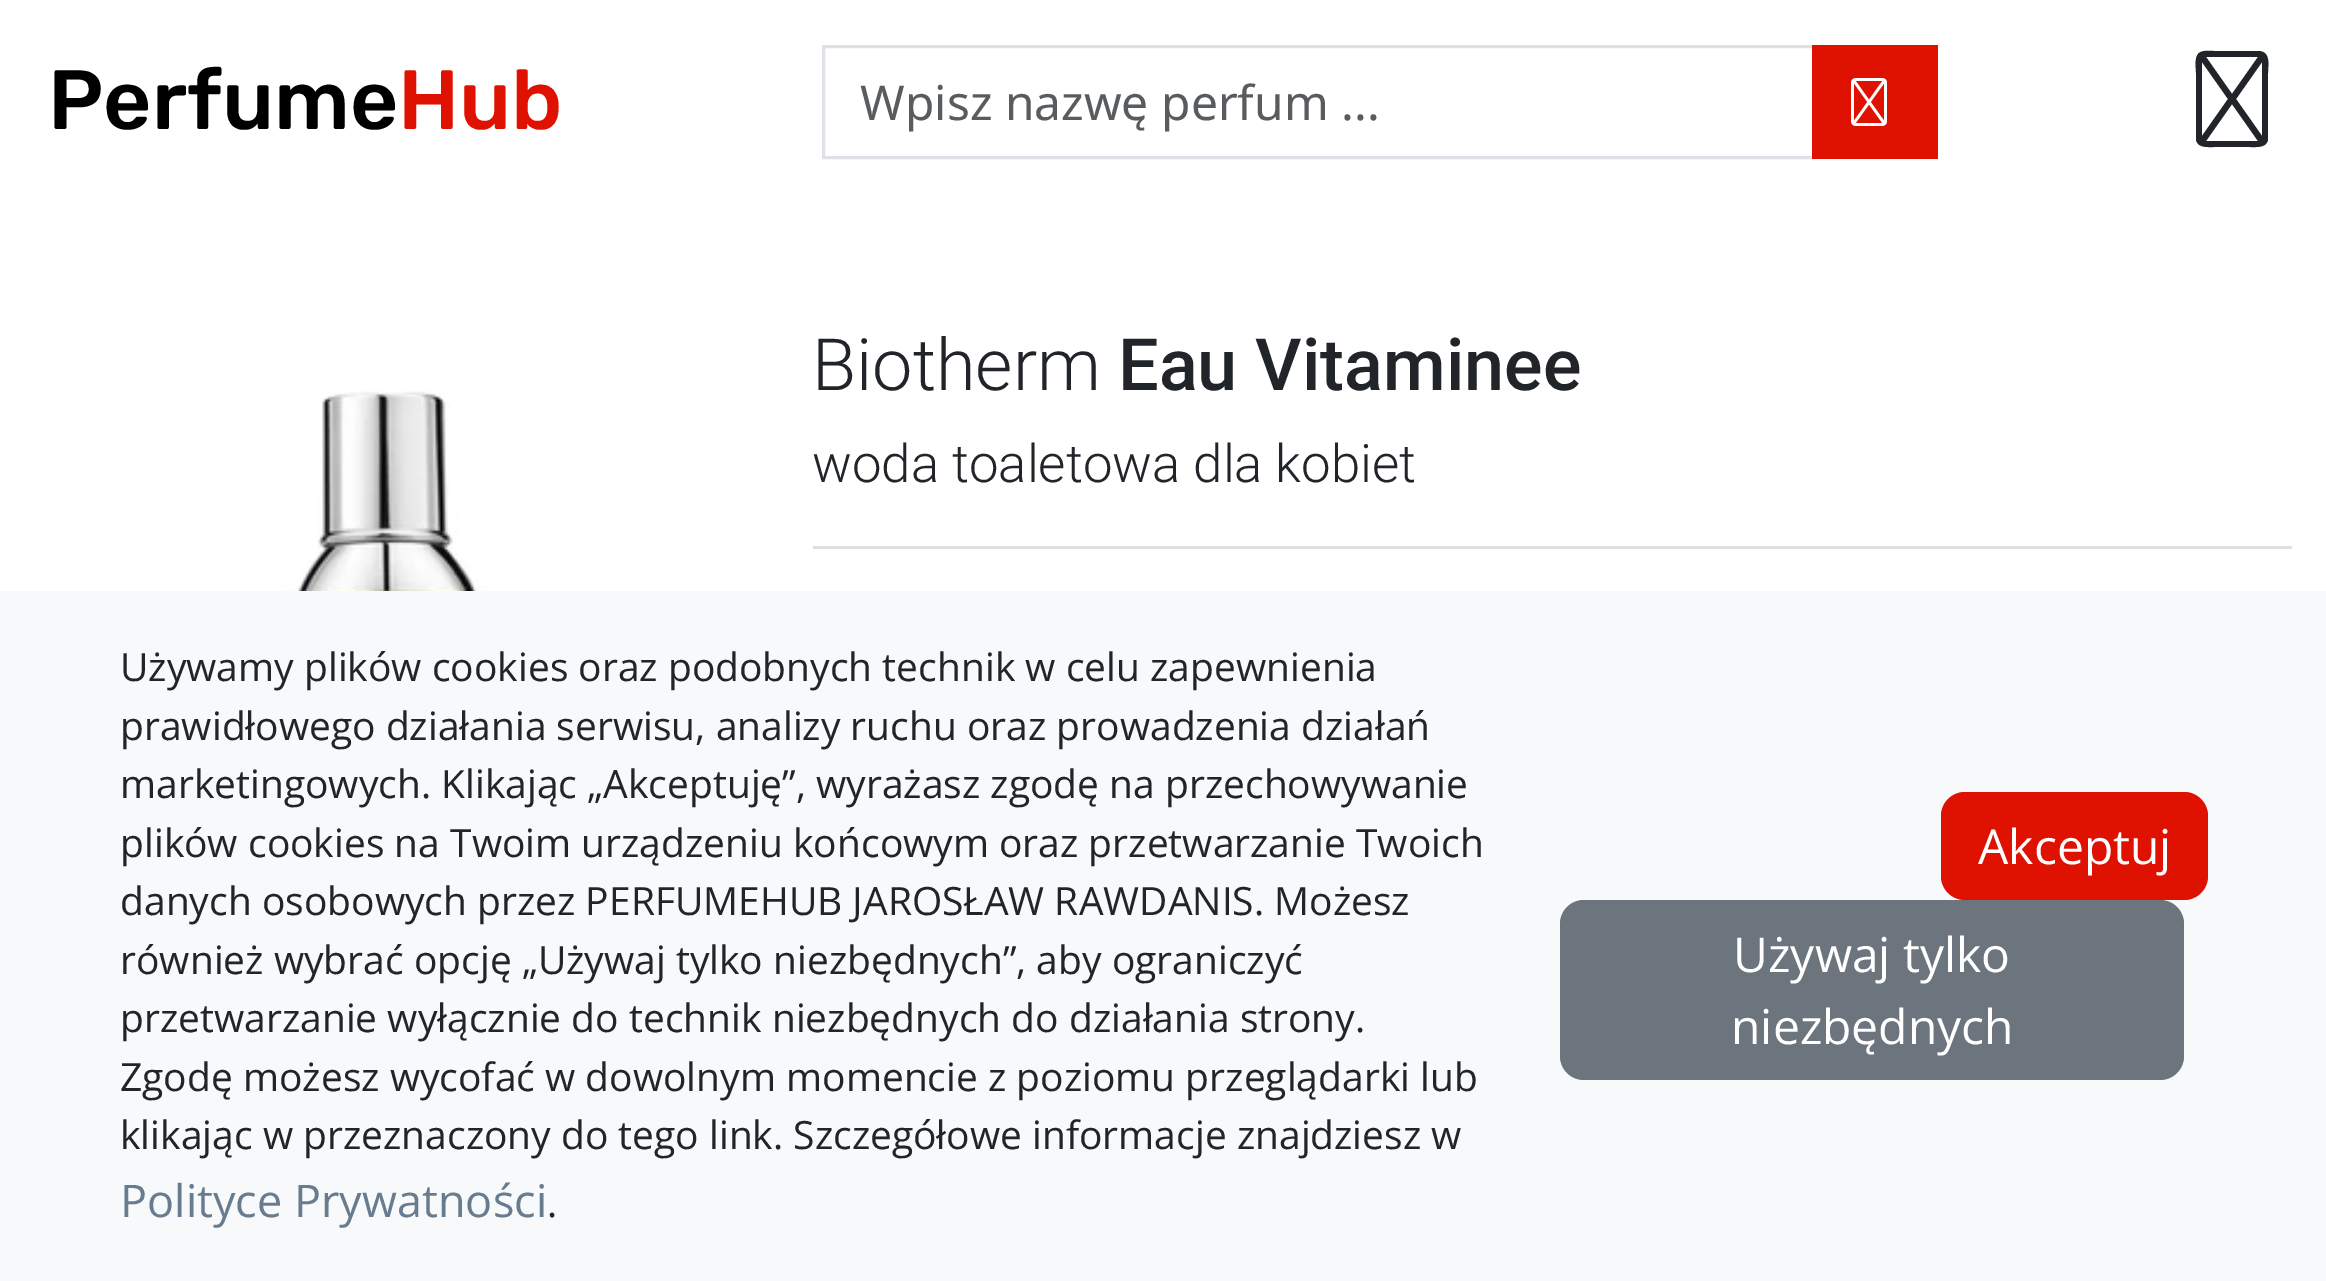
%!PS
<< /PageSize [2326 1281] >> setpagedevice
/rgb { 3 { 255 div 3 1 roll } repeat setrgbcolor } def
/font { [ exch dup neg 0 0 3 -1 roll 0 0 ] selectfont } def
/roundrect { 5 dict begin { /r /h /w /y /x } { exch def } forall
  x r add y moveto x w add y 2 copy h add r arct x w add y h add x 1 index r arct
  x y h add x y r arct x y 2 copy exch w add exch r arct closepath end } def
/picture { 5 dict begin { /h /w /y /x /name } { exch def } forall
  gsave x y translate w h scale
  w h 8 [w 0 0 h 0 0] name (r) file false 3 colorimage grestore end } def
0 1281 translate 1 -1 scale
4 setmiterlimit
255 255 255 rgb
0 0 2326 1281 rectfill
222 226 230 rgb
3 setlinewidth
823.5 46.5 990 111 rectstroke
223 17 0 rgb
1812 45 126 114 rectfill
(img/1.rgb) 1851 78 36 48 picture
33 37 41 rgb
2259 51 moveto 2214 51 lineto 2209 51 2203 50 2199 53 curveto 2194 57 2196 68 2196 73 curveto 2196 140 lineto 2198 148 2207 147 2214 147 curveto 2250 147 lineto 2257 147 2266 148 2268 140 curveto 2268 73 lineto 2268 65 2271 52 2259 51 curveto closepath 2262 62 moveto 2262 136 lineto 2236 99 lineto closepath 2232 94 moveto 2206 57 lineto 2258 57 lineto closepath 2228 99 moveto 2202 136 lineto 2202 62 lineto closepath 2232 104 moveto 2258 141 lineto 2206 141 lineto closepath fill
(img/2.rgb) 243 391 284 200 picture
223 223 223 rgb
813 546 1479 3 rectfill
248 249 250 rgb
0 591 2326 690 rectfill
223 17 0 rgb
1941 792 267 108 24 roundrect fill
108 117 125 rgb
1560 900 624 180 24 roundrect fill
/Rubik-Light 84 font
0 0 0 rgb
48 129 moveto (Perfume) show
223 17 0 rgb
398 129 moveto (Hub) show
/NotoSans-Regular 48 font
89 92 95 rgb
860 120 moveto (Wpisz nazwę perfum ...) show
/Roboto-Light 72 font
33 37 41 rgb
812 390 moveto (Biotherm) show
/Roboto-Medium 72 font
1118 390 moveto (Eau Vitaminee) show
/Roboto-Light 52.75 font
812 482 moveto (woda toaletowa dla kobiet) show
/OpenSans-Regular 39 font
[
  [(Używamy plików cookies oraz podobnych technik w celu zapewnienia) 120 681]
  [(prawidłowego działania serwisu, analizy ruchu oraz prowadzenia działań) 120 740]
  [(marketingowych. Klikając „Akceptuję”, wyrażasz zgodę na przechowywanie) 120 798]
  [(plików cookies na Twoim urządzeniu końcowym oraz przetwarzanie Twoich) 120 857]
  [(danych osobowych przez PERFUMEHUB JAROSŁAW RAWDANIS. Możesz) 120 915]
  [(również wybrać opcję „Używaj tylko niezbędnych”, aby ograniczyć) 120 974]
  [(przetwarzanie wyłącznie do technik niezbędnych do działania strony.) 120 1032]
  [(Zgodę możesz wycofać w dowolnym momencie z poziomu przeglądarki lub) 120 1091]
  [(klikając w przeznaczony do tego link. Szczegółowe informacje znajdziesz w) 120 1149]
] { aload pop moveto show } forall
/OpenSans-Regular 45 font
103 124 143 rgb
120 1217 moveto (Polityce Prywatności) show
/OpenSans-Regular 39 font
33 37 41 rgb
547 1217 moveto (.) show
/OpenSans-Regular 48 font
255 255 255 rgb
[
  [(Akceptuj) 1978 864]
  [(Używaj tylko) 1733 972]
  [(niezbędnych) 1731 1044]
] { aload pop moveto show } forall
showpage
